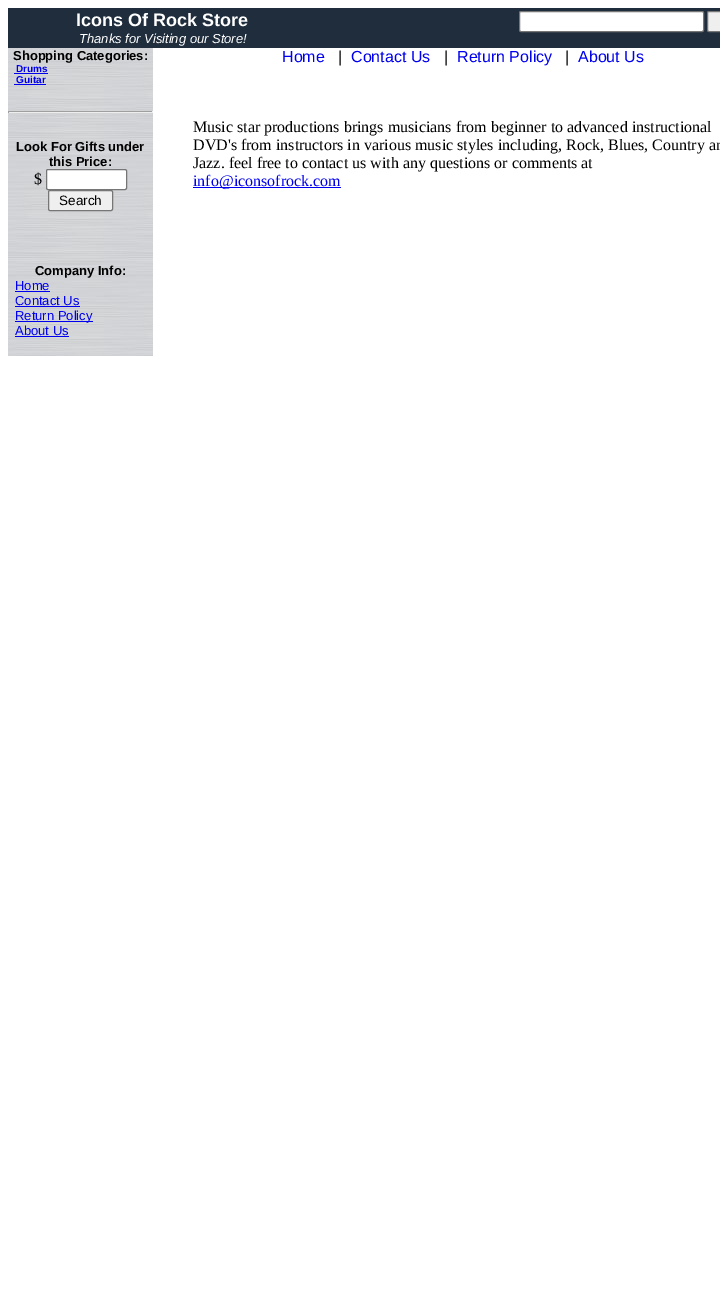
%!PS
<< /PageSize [720 1306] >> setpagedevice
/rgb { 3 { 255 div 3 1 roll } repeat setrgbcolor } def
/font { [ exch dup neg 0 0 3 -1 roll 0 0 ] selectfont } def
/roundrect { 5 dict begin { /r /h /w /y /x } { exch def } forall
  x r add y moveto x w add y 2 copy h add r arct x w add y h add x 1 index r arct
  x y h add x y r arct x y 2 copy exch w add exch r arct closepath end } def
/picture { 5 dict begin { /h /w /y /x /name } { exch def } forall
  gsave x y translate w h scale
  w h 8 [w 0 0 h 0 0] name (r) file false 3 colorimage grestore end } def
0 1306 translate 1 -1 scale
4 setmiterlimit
255 255 255 rgb
0 0 720 1306 rectfill
31 45 61 rgb
8 8 712 40 rectfill
255 255 255 rgb
519.5 11.5 184 20 1.5 roundrect gsave fill grestore
118 118 118 rgb
stroke
239 239 239 rgb
707.5 11.5 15 20 1.5 roundrect gsave fill grestore
118 118 118 rgb
stroke
(img/1.rgb) 8 48 145 308 picture
[
  [14 73 34 1 0 0 238]
  [14 84 32 1 0 0 238]
  [8 111 145 1 159 159 159]
  [152 111 1 2 238 238 238]
  [8 112 145 1 238 238 238]
  [8 111 1 2 159 159 159]
] { aload pop rgb rectfill } forall
255 255 255 rgb
46.5 169.5 80 20 1.5 roundrect gsave fill grestore
118 118 118 rgb
stroke
239 239 239 rgb
48.5 190.5 64 20 1.5 roundrect gsave fill grestore
118 118 118 rgb
stroke
[
  [15 291 35 1 0 0 238]
  [15 306 65 1 0 0 238]
  [15 321 78 1 0 0 238]
  [15 336 54 1 0 0 238]
  [193 187 148 1 0 0 238]
] { aload pop rgb rectfill } forall
/LiberationSans-Bold 18 font
255 255 255 rgb
76 26 moveto (Icons Of Rock Store) show
/LiberationSans-Italic 13 font
79 43 moveto (Thanks for Visiting our Store!) show
/LiberationSans-Bold 13 font
0 0 0 rgb
13 60 moveto (Shopping Categories:) show
/LiberationSans-Bold 10 font
0 0 238 rgb
16 72 moveto (Drums) show
16 83 moveto (Guitar) show
/LiberationSans-Bold 13 font
0 0 0 rgb
16 151 moveto (Look For Gifts under) show
49 166 moveto (this Price:) show
/LiberationSerif-Regular 16 font
34 184 moveto ($) show
/LiberationSans-Regular 13.5 font
59 205 moveto (Search) show
/LiberationSans-Bold 13 font
35 275 moveto (Company Info:) show
/LiberationSans-Regular 13 font
0 0 238 rgb
[
  [(Home) 15 290]
  [(Contact Us) 15 305]
  [(Return Policy) 15 320]
  [(About Us) 15 335]
] { aload pop moveto show } forall
/LiberationSans-Regular 16 font
282 62 moveto (Home) show
0 0 0 rgb
338 62 moveto (|) show
0 0 238 rgb
351 62 moveto (Contact Us) show
0 0 0 rgb
444 62 moveto (|) show
0 0 238 rgb
457 62 moveto (Return Policy) show
0 0 0 rgb
565 62 moveto (|) show
0 0 238 rgb
578 62 moveto (About Us) show
/LiberationSerif-Regular 16 font
0 0 0 rgb
[
  [(Music star productions brings musicians from beginner to advanced instructional) 193 132]
  [(DVD's from instructors in various music styles including, Rock, Blues, Country an) 193 150]
  [(Jazz. feel free to contact us with any questions or comments at) 193 168]
] { aload pop moveto show } forall
0 0 238 rgb
193 186 moveto (info@iconsofrock.com) show
showpage
